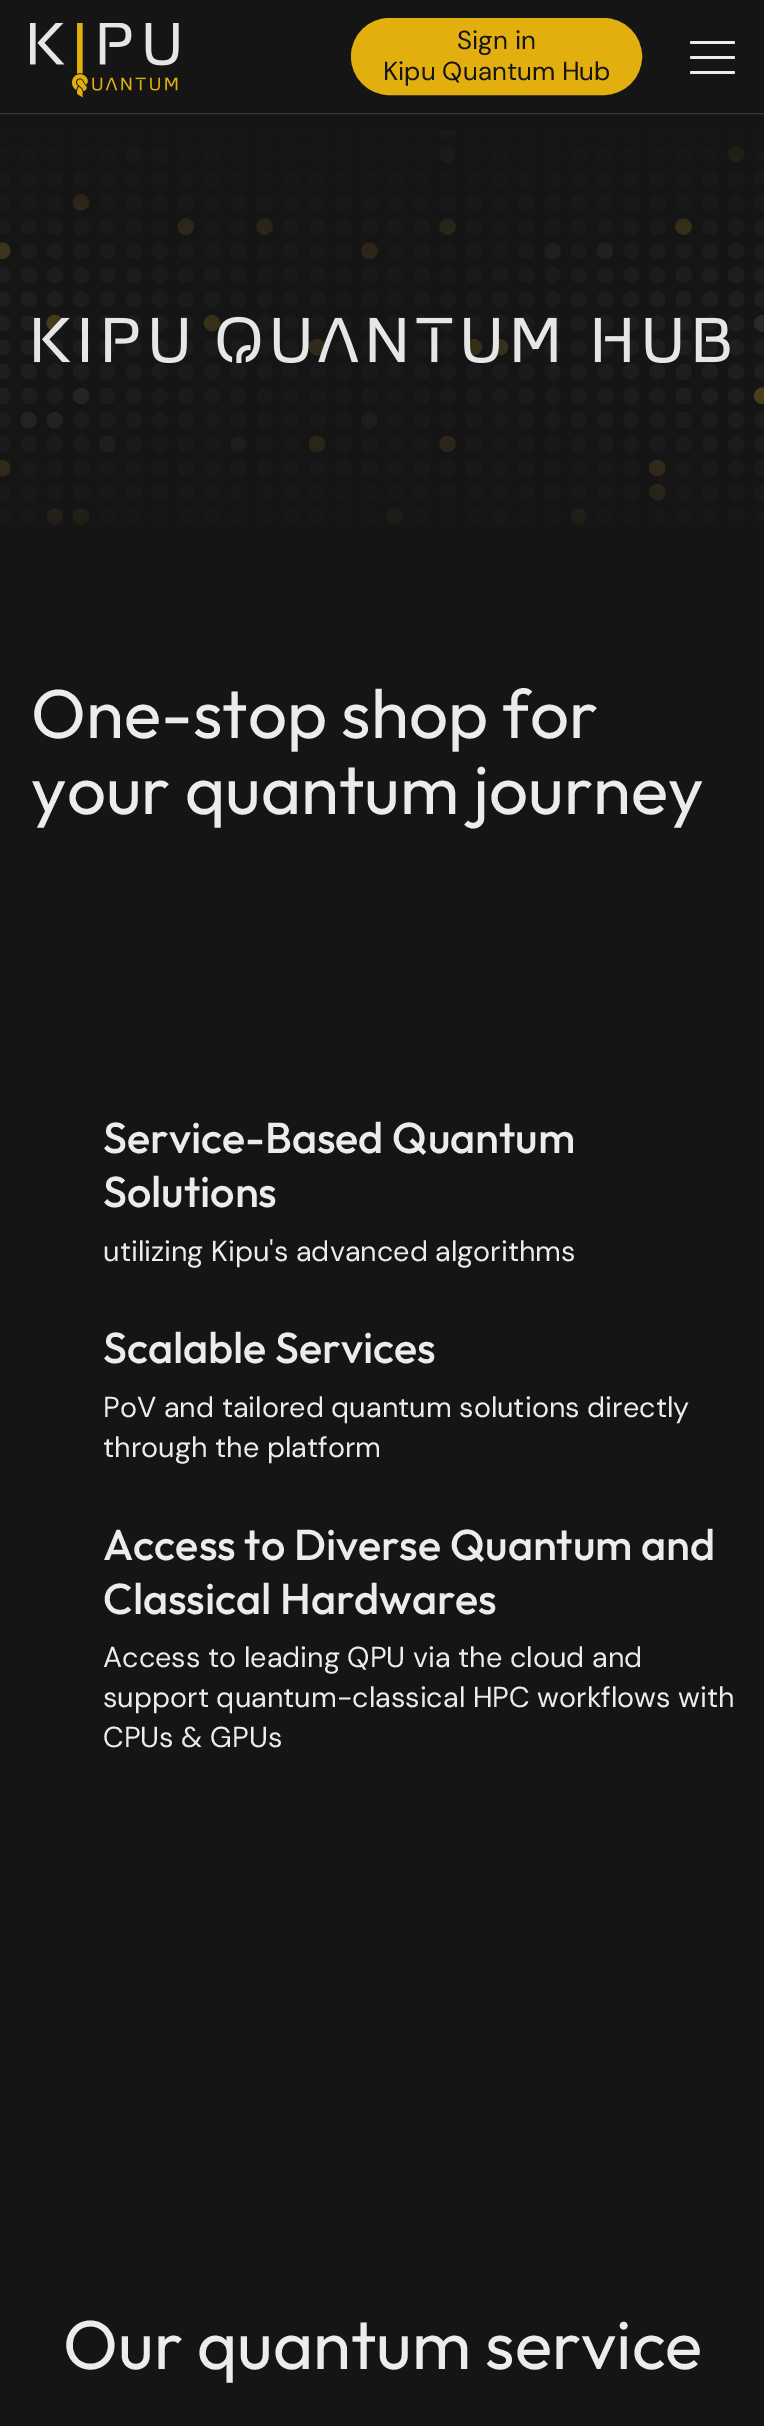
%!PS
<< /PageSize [764 2426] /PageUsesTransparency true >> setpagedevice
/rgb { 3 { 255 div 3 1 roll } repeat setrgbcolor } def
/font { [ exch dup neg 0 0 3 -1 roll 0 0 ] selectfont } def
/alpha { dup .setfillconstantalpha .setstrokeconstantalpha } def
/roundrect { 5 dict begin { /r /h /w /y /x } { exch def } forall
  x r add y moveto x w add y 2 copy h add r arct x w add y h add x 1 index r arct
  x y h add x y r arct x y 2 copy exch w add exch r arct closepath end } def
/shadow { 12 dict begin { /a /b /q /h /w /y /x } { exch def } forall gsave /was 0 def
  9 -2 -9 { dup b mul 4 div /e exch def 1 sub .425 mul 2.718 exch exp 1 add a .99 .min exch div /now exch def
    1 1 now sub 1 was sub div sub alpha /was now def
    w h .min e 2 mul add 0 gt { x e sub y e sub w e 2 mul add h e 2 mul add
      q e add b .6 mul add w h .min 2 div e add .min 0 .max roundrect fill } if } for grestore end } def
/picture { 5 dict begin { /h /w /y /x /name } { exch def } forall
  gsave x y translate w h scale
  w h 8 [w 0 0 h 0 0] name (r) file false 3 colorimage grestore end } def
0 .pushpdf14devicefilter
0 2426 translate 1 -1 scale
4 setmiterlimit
21 21 21 rgb
0 0 764 2426 rectfill
237 236 236 rgb
0 0 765 113 0 1 0.5 shadow
21 21 21 rgb
0 0 764 113 rectfill
(img/1.rgb) 30 23 149 75 picture
226 175 14 rgb
352 19 289 75 37.5 roundrect gsave fill grestore
2 setlinewidth
stroke
237 236 236 rgb
690 56 45 3 1.5 roundrect fill
690 41 45 3 1.5 roundrect fill
690 71 45 3 1.5 roundrect fill
(img/2.rgb) 0 130 764 395 picture
(img/3.rgb) 34 316 696 48 picture
/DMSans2-Regular 26 font
21 21 21 rgb
457 49 moveto (Sign in) show
383 80 moveto (Kipu Quantum Hub) show
/Outfit-Regular 69.1 font
237 236 236 rgb
31 738 moveto (One-stop shop for) show
31 814 moveto (your quantum journey) show
/Outfit-Medium 43.25 font
103 1153 moveto (Service-Based Quantum) show
103 1207 moveto (Solutions) show
/DMSans-Regular 28.8 font
103 1261 moveto (utilizing Kipu's advanced algorithms) show
/Outfit-Medium 43.25 font
103 1363 moveto (Scalable Services) show
/DMSans-Regular 28.8 font
103 1417 moveto (PoV and tailored quantum solutions directly) show
103 1457 moveto (through the platform) show
/Outfit-Medium 43.25 font
103 1560 moveto (Access to Diverse Quantum and) show
103 1614 moveto (Classical Hardwares) show
/DMSans-Regular 28.8 font
[
  [(Access to leading QPU via the cloud and) 103 1667]
  [(support quantum-classical HPC workflows with) 103 1707]
  [(CPUs & GPUs) 103 1747]
] { aload pop moveto show } forall
/Outfit-Regular 69.1 font
63 2369 moveto (Our quantum service) show
.poppdf14devicefilter showpage
